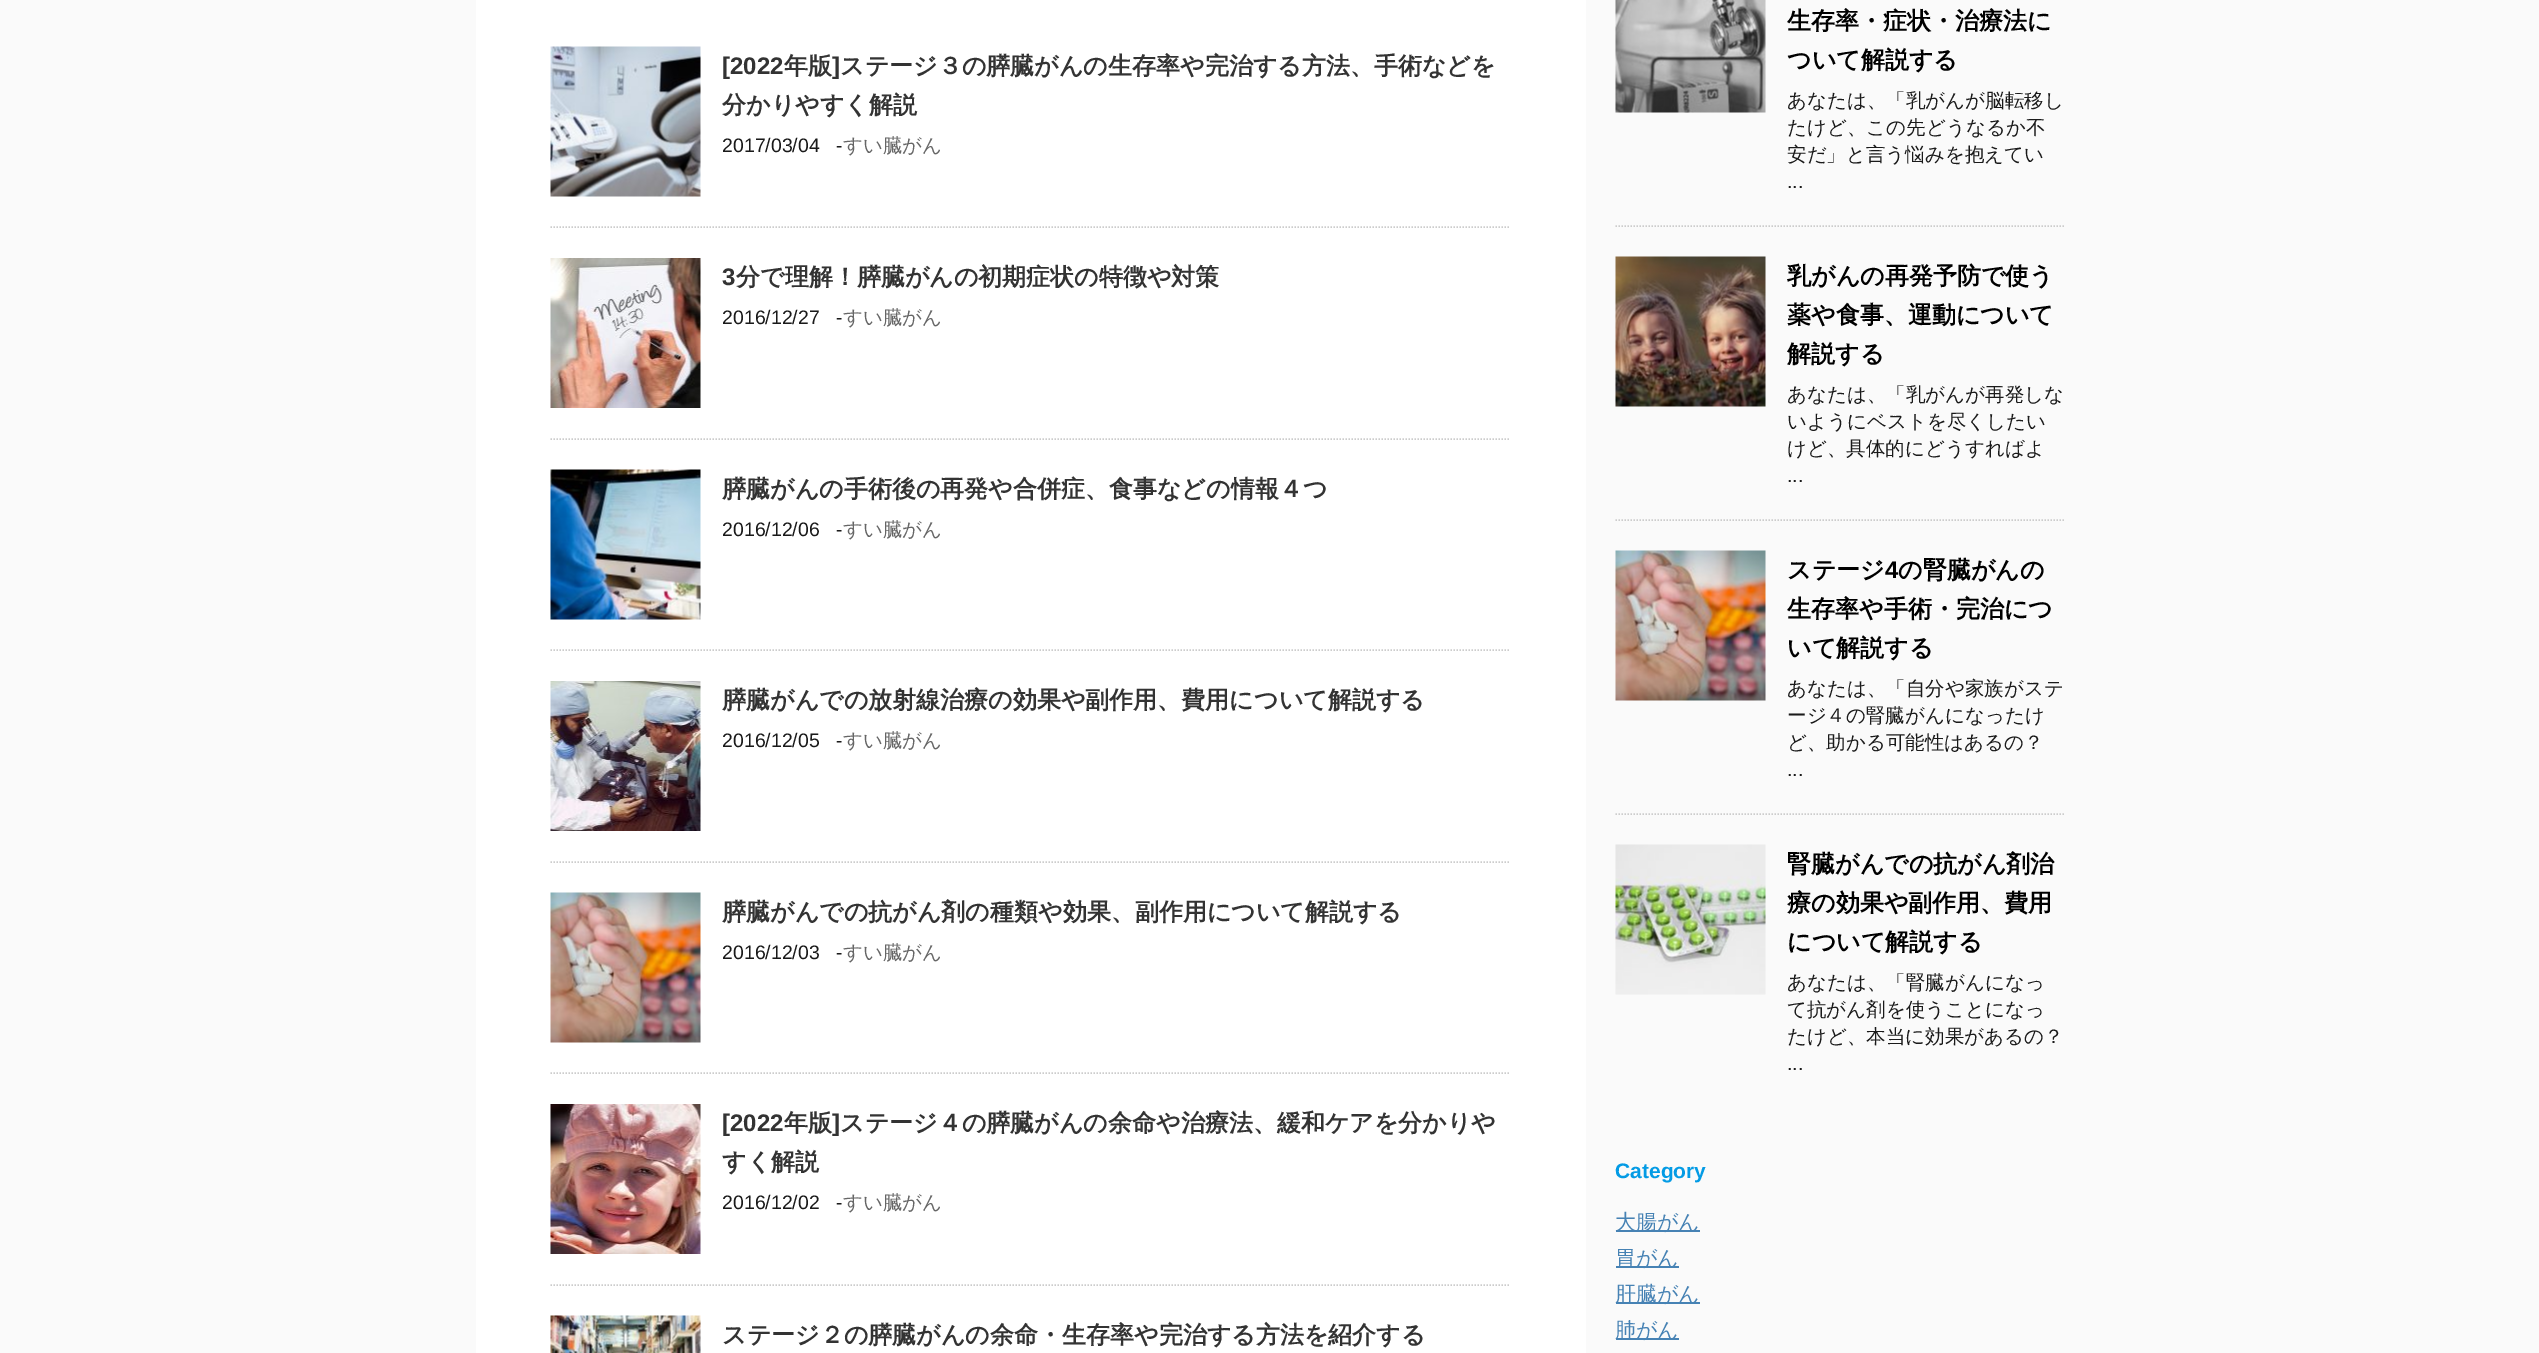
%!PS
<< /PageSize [2539 1353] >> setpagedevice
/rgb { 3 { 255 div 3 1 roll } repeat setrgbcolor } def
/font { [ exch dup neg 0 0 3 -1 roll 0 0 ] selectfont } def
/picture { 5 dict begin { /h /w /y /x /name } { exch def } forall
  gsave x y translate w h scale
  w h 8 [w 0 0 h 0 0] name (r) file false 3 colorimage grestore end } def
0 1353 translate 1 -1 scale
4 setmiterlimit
250 250 250 rgb
0 0 2539 1353 rectfill
255 255 255 rgb
476 0 1110 1353 rectfill
204 204 204 rgb
1.5 setlinewidth
[1.5 1.5] 0 setdash
550.5 227 moveto 1510.5 227 lineto stroke
(img/1.rgb) 550 46 151 151 picture
550.5 439 moveto 1510.5 439 lineto stroke
(img/2.rgb) 550 258 151 150 picture
550.5 650 moveto 1510.5 650 lineto stroke
(img/3.rgb) 550 469 151 151 picture
550.5 862 moveto 1510.5 862 lineto stroke
(img/4.rgb) 550 681 151 150 picture
550.5 1073 moveto 1510.5 1073 lineto stroke
(img/5.rgb) 550 892 151 151 picture
550.5 1285 moveto 1510.5 1285 lineto stroke
(img/6.rgb) 550 1104 151 150 picture
(img/7.rgb) 550 1315 151 38 picture
1615.5 226 moveto 2065.5 226 lineto stroke
(img/8.rgb) 1615 0 151 113 picture
1615.5 520 moveto 2065.5 520 lineto stroke
(img/9.rgb) 1615 256 151 151 picture
1615.5 814 moveto 2065.5 814 lineto stroke
(img/10.rgb) 1615 550 151 151 picture
(img/11.rgb) 1615 844 151 151 picture
[
  [1616 1230 84 2 70 130 180]
  [1616 1266 63 2 70 130 180]
  [1616 1302 84 2 70 130 180]
  [1616 1338 63 2 70 130 180]
] { aload pop rgb rectfill } forall
/LiberationSans-Bold 24 font
51 51 51 rgb
722 74 moveto ([2022) show
/WenQuanYiZenHei-Bold 24 font
784 74 moveto (年版) show
/LiberationSans-Bold 24 font
832 74 moveto (]) show
/WenQuanYiZenHei-Bold 24 font
840 74 moveto (ステージ３の膵臓がんの生存率や完治する方法、手術などを) show
722 113 moveto (分かりやすく解説) show
/LiberationSans-Regular 19.5 font
26 26 26 rgb
722 152 moveto (2017/03/04) show
836 152 moveto (-) show
/WenQuanYiZenHei-Medium 19.5 font
102 102 102 rgb
843 152 moveto (すい臓がん) show
/LiberationSans-Bold 24 font
51 51 51 rgb
722 285 moveto (3) show
/WenQuanYiZenHei-Bold 24 font
736 285 moveto (分で理解！膵臓がんの初期症状の特徴や対策) show
/LiberationSans-Regular 19.5 font
26 26 26 rgb
722 324 moveto (2016/12/27) show
836 324 moveto (-) show
/WenQuanYiZenHei-Medium 19.5 font
102 102 102 rgb
843 324 moveto (すい臓がん) show
/WenQuanYiZenHei-Bold 24 font
51 51 51 rgb
722 497 moveto (膵臓がんの手術後の再発や合併症、食事などの情報４つ) show
/LiberationSans-Regular 19.5 font
26 26 26 rgb
722 536 moveto (2016/12/06) show
836 536 moveto (-) show
/WenQuanYiZenHei-Medium 19.5 font
102 102 102 rgb
843 536 moveto (すい臓がん) show
/WenQuanYiZenHei-Bold 24 font
51 51 51 rgb
722 708 moveto (膵臓がんでの放射線治療の効果や副作用、費用について解説する) show
/LiberationSans-Regular 19.5 font
26 26 26 rgb
722 747 moveto (2016/12/05) show
836 747 moveto (-) show
/WenQuanYiZenHei-Medium 19.5 font
102 102 102 rgb
843 747 moveto (すい臓がん) show
/WenQuanYiZenHei-Bold 24 font
51 51 51 rgb
722 920 moveto (膵臓がんでの抗がん剤の種類や効果、副作用について解説する) show
/LiberationSans-Regular 19.5 font
26 26 26 rgb
722 959 moveto (2016/12/03) show
836 959 moveto (-) show
/WenQuanYiZenHei-Medium 19.5 font
102 102 102 rgb
843 959 moveto (すい臓がん) show
/LiberationSans-Bold 24 font
51 51 51 rgb
722 1131 moveto ([2022) show
/WenQuanYiZenHei-Bold 24 font
784 1131 moveto (年版) show
/LiberationSans-Bold 24 font
832 1131 moveto (]) show
/WenQuanYiZenHei-Bold 24 font
840 1131 moveto (ステージ４の膵臓がんの余命や治療法、緩和ケアを分かりや) show
722 1170 moveto (すく解説) show
/LiberationSans-Regular 19.5 font
26 26 26 rgb
722 1209 moveto (2016/12/02) show
836 1209 moveto (-) show
/WenQuanYiZenHei-Medium 19.5 font
102 102 102 rgb
843 1209 moveto (すい臓がん) show
/WenQuanYiZenHei-Bold 24 font
51 51 51 rgb
722 1343 moveto (ステージ２の膵臓がんの余命・生存率や完治する方法を紹介する) show
0 0 0 rgb
1787 29 moveto (生存率・症状・治療法に) show
1787 68 moveto (ついて解説する) show
/WenQuanYiZenHei-Medium 19.5 font
26 26 26 rgb
[
  [(あなたは、「乳がんが脳転移し) 1787 107]
  [(たけど、この先どうなるか不) 1787 134]
  [(安だ」と言う悩みを抱えてい) 1787 161]
] { aload pop moveto show } forall
/LiberationSans-Regular 19.5 font
1787 188 moveto (...) show
/WenQuanYiZenHei-Bold 24 font
0 0 0 rgb
[
  [(乳がんの再発予防で使う) 1787 284]
  [(薬や食事、運動について) 1787 323]
  [(解説する) 1787 362]
] { aload pop moveto show } forall
/WenQuanYiZenHei-Medium 19.5 font
26 26 26 rgb
[
  [(あなたは、「乳がんが再発しな) 1787 401]
  [(いようにベストを尽くしたい) 1787 428]
  [(けど、具体的にどうすればよ) 1787 455]
] { aload pop moveto show } forall
/LiberationSans-Regular 19.5 font
1787 482 moveto (...) show
/WenQuanYiZenHei-Bold 24 font
0 0 0 rgb
1787 578 moveto (ステージ) show
/LiberationSans-Bold 24 font
1885 578 moveto (4) show
/WenQuanYiZenHei-Bold 24 font
[
  [(の腎臓がんの) 1898 578]
  [(生存率や手術・完治につ) 1787 617]
  [(いて解説する) 1787 656]
] { aload pop moveto show } forall
/WenQuanYiZenHei-Medium 19.5 font
26 26 26 rgb
[
  [(あなたは、「自分や家族がステ) 1787 695]
  [(ージ４の腎臓がんになったけ) 1787 722]
  [(ど、助かる可能性はあるの？) 1787 749]
] { aload pop moveto show } forall
/LiberationSans-Regular 19.5 font
1787 776 moveto (...) show
/WenQuanYiZenHei-Bold 24 font
0 0 0 rgb
[
  [(腎臓がんでの抗がん剤治) 1787 872]
  [(療の効果や副作用、費用) 1787 911]
  [(について解説する) 1787 950]
] { aload pop moveto show } forall
/WenQuanYiZenHei-Medium 19.5 font
26 26 26 rgb
[
  [(あなたは、「腎臓がんになっ) 1787 989]
  [(て抗がん剤を使うことになっ) 1787 1016]
  [(たけど、本当に効果があるの？) 1787 1043]
] { aload pop moveto show } forall
/LiberationSans-Regular 19.5 font
1787 1070 moveto (...) show
/LiberationSans-Bold 21 font
3 155 229 rgb
1615 1178 moveto (Category) show
/WenQuanYiZenHei-Medium 21 font
70 130 180 rgb
[
  [(大腸がん) 1615 1229]
  [(胃がん) 1615 1265]
  [(肝臓がん) 1615 1301]
  [(肺がん) 1615 1337]
] { aload pop moveto show } forall
showpage
